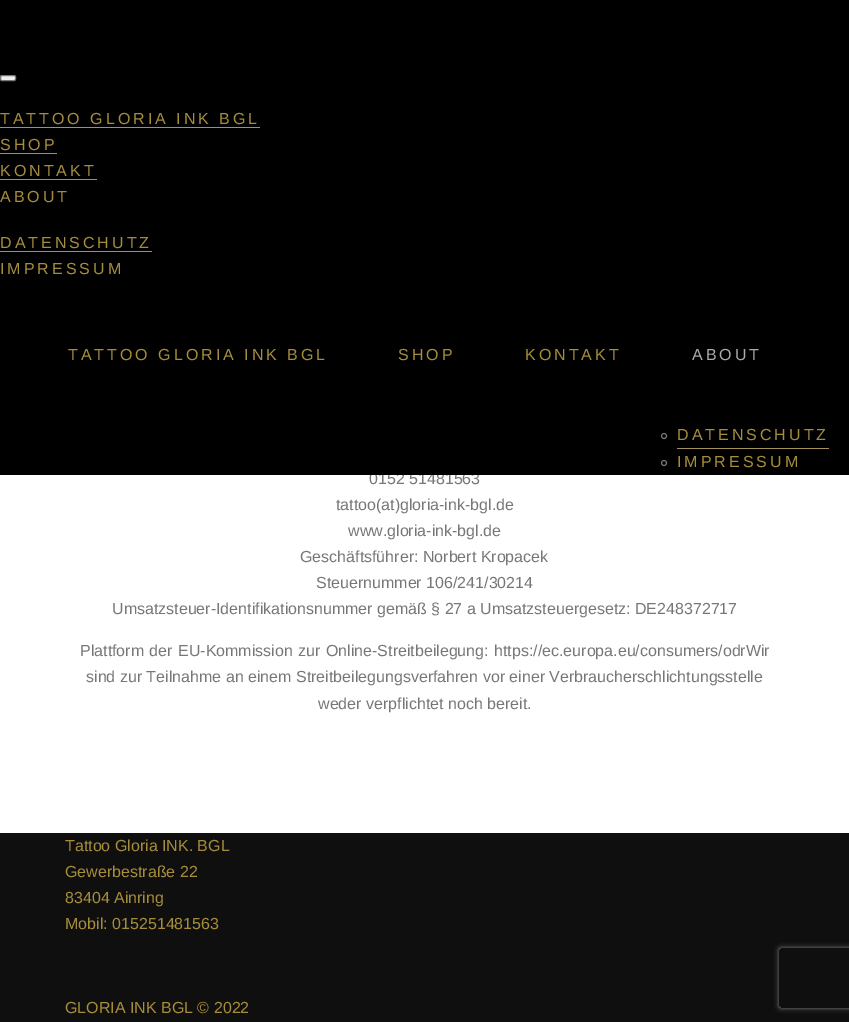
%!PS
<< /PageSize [849 1022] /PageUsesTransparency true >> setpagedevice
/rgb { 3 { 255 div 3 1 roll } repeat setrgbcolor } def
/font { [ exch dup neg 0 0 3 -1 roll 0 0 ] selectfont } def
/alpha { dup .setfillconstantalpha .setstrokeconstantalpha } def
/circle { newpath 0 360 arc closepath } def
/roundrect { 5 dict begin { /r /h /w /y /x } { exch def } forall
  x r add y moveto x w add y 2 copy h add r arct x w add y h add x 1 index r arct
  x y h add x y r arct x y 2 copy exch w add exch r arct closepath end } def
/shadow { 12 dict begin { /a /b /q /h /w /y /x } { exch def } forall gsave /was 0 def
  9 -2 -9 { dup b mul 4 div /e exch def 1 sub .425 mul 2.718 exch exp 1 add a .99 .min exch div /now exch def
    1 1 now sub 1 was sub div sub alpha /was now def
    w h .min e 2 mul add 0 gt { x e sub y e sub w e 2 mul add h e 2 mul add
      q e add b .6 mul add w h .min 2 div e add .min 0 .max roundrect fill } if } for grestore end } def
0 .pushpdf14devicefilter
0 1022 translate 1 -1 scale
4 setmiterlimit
15 15 15 rgb
0 0 849 1022 rectfill
255 255 255 rgb
0 475 849 358 rectfill
gsave
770 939 moveto 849 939 lineto 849 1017 lineto 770 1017 lineto closepath 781 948 moveto 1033 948 lineto 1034 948 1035 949 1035 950 curveto 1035 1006 lineto 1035 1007 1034 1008 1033 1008 curveto 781 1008 lineto 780 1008 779 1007 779 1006 curveto 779 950 lineto 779 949 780 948 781 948 curveto closepath eoclip newpath
128 128 128 rgb
779 948 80 60 2 2.5 1 shadow
grestore
/LiberationSans-Regular 16 font
119 119 119 rgb
369 484 moveto (0152 51481563) show
0 0 0 rgb
0 0 849 475 rectfill
171 171 171 rgb
692 360 moveto 3 0 (ABOUT) ashow
166 141 60 rgb
677 467 moveto 3 0 (IMPRESSUM) ashow
119 119 119 rgb
664 463 2.5 circle stroke
166 141 60 rgb
677 440 moveto 3 0 (DATENSCHUTZ) ashow
119 119 119 rgb
664 436 2.5 circle stroke
166 146 88 rgb
677 448 152 1 rectfill
166 141 60 rgb
525 360 moveto 3 0 (KONTAKT) ashow
398 360 moveto 3 0 (SHOP) ashow
68 360 moveto 3 0 (TATTOO GLORIA INK BGL) ashow
0 274 moveto 3 0 (IMPRESSUM) ashow
0 248 moveto 3 0 (DATENSCHUTZ) ashow
166 146 88 rgb
0 251 152 1 rectfill
166 141 60 rgb
0 202 moveto 3 0 (ABOUT) ashow
0 176 moveto 3 0 (KONTAKT) ashow
166 146 88 rgb
0 179 97 1 rectfill
166 141 60 rgb
0 150 moveto 3 0 (SHOP) ashow
166 146 88 rgb
0 153 57 1 rectfill
166 141 60 rgb
0 124 moveto 3 0 (TATTOO GLORIA INK BGL) ashow
166 146 88 rgb
0 127 260 1 rectfill
239 239 239 rgb
0.5 75.5 15 5 1.5 roundrect gsave fill grestore
118 118 118 rgb
stroke
119 119 119 rgb
[
  [(tattoo\(at\)gloria-ink-bgl.de) 336 510]
  [(www.gloria-ink-bgl.de) 348 536]
  [(Geschäftsführer: Norbert Kropacek) 300 562]
  [(Steuernummer 106/241/30214) 316 588]
  [(Umsatzsteuer-Identifikationsnummer gemäß § 27 a Umsatzsteuergesetz: DE248372717) 112 614]
] { aload pop moveto show } forall
80 656 moveto 1 0 32 (Plattform der EU-Kommission zur Online-Streitbeilegung: https://ec.europa.eu/consumers/odrWir) widthshow
86 682 moveto (sind zur Teilnahme an einem Streitbeilegungsverfahren vor einer Verbraucherschlichtungsstelle) show
318 709 moveto (weder verpflichtet noch bereit.) show
166 141 60 rgb
[
  [(Tattoo Gloria INK. BGL) 65 851]
  [(Gewerbestraße 22) 65 877]
  [(83404 Ainring) 65 903]
  [(Mobil: 015251481563) 65 929]
  [(GLORIA INK BGL © 2022) 65 1013]
] { aload pop moveto show } forall
.poppdf14devicefilter showpage
